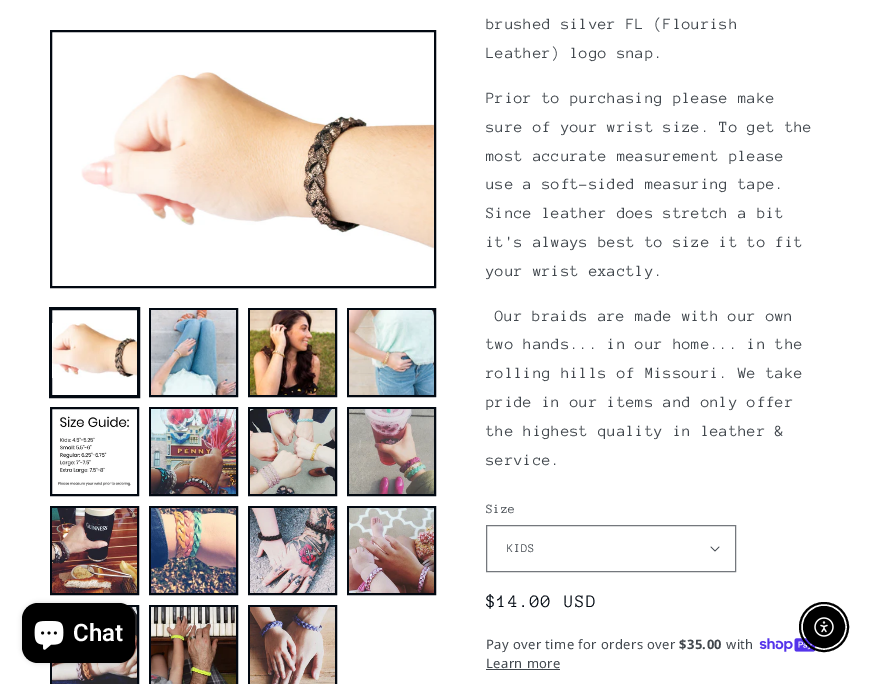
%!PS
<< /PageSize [871 684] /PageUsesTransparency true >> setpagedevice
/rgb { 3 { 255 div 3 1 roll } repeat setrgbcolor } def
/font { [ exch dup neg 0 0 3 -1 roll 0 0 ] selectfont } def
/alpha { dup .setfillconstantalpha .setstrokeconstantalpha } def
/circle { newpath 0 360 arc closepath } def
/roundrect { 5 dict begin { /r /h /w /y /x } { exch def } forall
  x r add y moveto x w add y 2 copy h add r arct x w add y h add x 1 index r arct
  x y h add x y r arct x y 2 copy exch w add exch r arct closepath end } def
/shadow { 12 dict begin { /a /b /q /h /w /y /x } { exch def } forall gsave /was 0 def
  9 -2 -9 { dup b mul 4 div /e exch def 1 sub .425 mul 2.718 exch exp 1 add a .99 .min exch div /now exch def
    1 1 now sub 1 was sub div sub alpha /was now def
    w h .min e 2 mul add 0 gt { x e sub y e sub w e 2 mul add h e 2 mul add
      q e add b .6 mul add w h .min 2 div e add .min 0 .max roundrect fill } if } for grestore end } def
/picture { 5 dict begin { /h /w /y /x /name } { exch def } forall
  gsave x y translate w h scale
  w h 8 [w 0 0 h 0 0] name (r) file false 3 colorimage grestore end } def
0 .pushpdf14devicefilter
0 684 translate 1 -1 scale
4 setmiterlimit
255 255 255 rgb
0 0 871 684 rectfill
2 9 18 rgb
2 setlinewidth
51 507 87 87 rectstroke
51 606 87 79 rectstroke
(img/15.rgb) 52 607 85 77 picture
0 0 0 rgb
22 603 113 60 16 2.5 0.15 shadow
22 603 113 60 16 roundrect fill
(img/1.rgb) 34 621 30 29 picture
2 9 18 rgb
51 31 384 256 rectstroke
(img/2.rgb) 81 72 353 177 picture
1 setlinewidth
49.5 307.5 90 90 rectstroke
2 setlinewidth
51 309 87 87 rectstroke
(img/3.rgb) 52 323 85 55 picture
150 309 87 87 rectstroke
(img/4.rgb) 151 310 85 85 picture
249 309 87 87 rectstroke
(img/5.rgb) 250 310 85 85 picture
348 309 87 87 rectstroke
(img/6.rgb) 349 310 85 85 picture
51 408 87 87 rectstroke
(img/7.rgb) 58 415 73 72 picture
150 408 87 87 rectstroke
(img/8.rgb) 151 409 85 85 picture
249 408 87 87 rectstroke
(img/9.rgb) 250 409 85 85 picture
348 408 87 87 rectstroke
(img/10.rgb) 349 409 85 85 picture
(img/11.rgb) 52 508 85 85 picture
150 507 87 87 rectstroke
(img/12.rgb) 151 508 85 85 picture
249 507 87 87 rectstroke
(img/13.rgb) 250 508 85 85 picture
348 507 87 87 rectstroke
(img/14.rgb) 349 508 85 85 picture
150 606 87 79 rectstroke
(img/16.rgb) 151 607 85 77 picture
249 606 87 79 rectstroke
(img/17.rgb) 250 607 85 77 picture
(img/18.rgb) 710 546 10 6 picture
116 120 125 rgb
1 setlinewidth
486.5 525.5 249 46 rectstroke
(img/19.rgb) 759 638 57 14 picture
65 71 77 rgb
486 669 74 1 rectfill
0 0 0 rgb
2 setlinewidth
824 627 24 circle stroke
824 627 20.5 circle gsave fill grestore
1 setlinewidth
stroke
(img/20.rgb) 814 617 20 20 picture
/Roboto-SemiBold 24 font
255 255 255 rgb
73 641 moveto (Chat) show
/AnonymousPro-Regular 16 font
65 71 77 rgb
486 29 moveto 0.6 0 (brushed silver FL \(Flourish) ashow
486 58 moveto 0.6 0 (Leather\) logo snap.) ashow
486 103 moveto 0.6 0 (Prior to purchasing please make) ashow
486 132 moveto 0.6 0 (sure of your wrist size. To get the) ashow
486 161 moveto 0.6 0 (most accurate measurement please) ashow
486 189 moveto 0.6 0 (use a soft-sided measuring tape.) ashow
486 218 moveto 0.6 0 (Since leather does stretch a bit) ashow
486 247 moveto 0.6 0 (it's always best to size it to fit) ashow
486 276 moveto 0.6 0 (your wrist exactly.) ashow
495 321 moveto 0.6 0 (Our braids are made with our own) ashow
486 349 moveto 0.6 0 (two hands... in our home... in the) ashow
486 378 moveto 0.6 0 (rolling hills of Missouri. We take) ashow
486 407 moveto 0.6 0 (pride in our items and only offer) ashow
486 436 moveto 0.6 0 (the highest quality in leather &) ashow
486 465 moveto 0.6 0 (service.) ashow
/AnonymousPro-Regular 13 font
486 513 moveto 0.4 0 (Size) ashow
gsave
507 539 197 19 rectclip
/AnonymousPro-Regular 12 font
507 552 moveto 0.4 0 (KIDS) ashow
grestore
/AnonymousPro-Regular 18 font
2 9 18 rgb
486 607 moveto 1.25 0 ($14.00 USD) ashow
/NotoSans-Regular 13 font
65 71 77 rgb
486 649 moveto 0.4 0 (Pay over time for orders over) ashow
/NotoSans-Bold 13 font
679 649 moveto 0.4 0 ($35.00) ashow
/NotoSans-Regular 13 font
726 649 moveto 0.4 0 (with) ashow
486 668 moveto 0.4 0 (Learn more) ashow
.poppdf14devicefilter showpage
